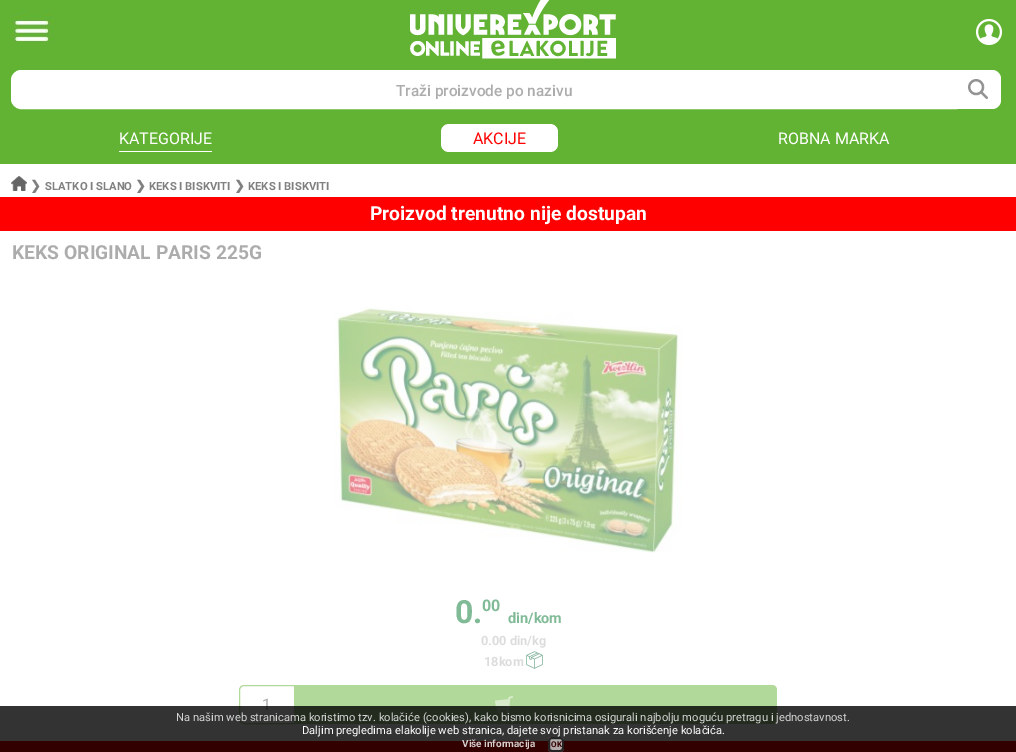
%!PS
<< /PageSize [1016 752] /PageUsesTransparency true >> setpagedevice
/rgb { 3 { 255 div 3 1 roll } repeat setrgbcolor } def
/font { [ exch dup neg 0 0 3 -1 roll 0 0 ] selectfont } def
/alpha { dup .setfillconstantalpha .setstrokeconstantalpha } def
/roundrect { 5 dict begin { /r /h /w /y /x } { exch def } forall
  x r add y moveto x w add y 2 copy h add r arct x w add y h add x 1 index r arct
  x y h add x y r arct x y 2 copy exch w add exch r arct closepath end } def
/picture { 5 dict begin { /h /w /y /x /name } { exch def } forall
  gsave x y translate w h scale
  w h 8 [w 0 0 h 0 0] name (r) file false 3 colorimage grestore end } def
0 .pushpdf14devicefilter
0 752 translate 1 -1 scale
4 setmiterlimit
255 255 255 rgb
0 0 1016 752 rectfill
98 179 51 rgb
0 0 1016 164 rectfill
(img/1.rgb) 11 11 42 32 picture
(img/2.rgb) 410 0 206 59 picture
(img/3.rgb) 976 19 26 26 picture
255 255 255 rgb
21 70.5 moveto 956.5 70.5 lineto 956.5 108.5 lineto 21 108.5 lineto 16 108.5 11.5 104 11.5 99 curveto 11.5 80 lineto 11.5 75 16 70.5 21 70.5 curveto closepath gsave fill grestore
stroke
957 70 moveto 992 70 lineto 997 70 1001 74 1001 79 curveto 1001 100 lineto 1001 105 997 109 992 109 curveto 957 109 lineto closepath fill
(img/4.rgb) 968 79 20 20 picture
119 151 93 1 rectfill
441 124 117 28 8 roundrect fill
(img/5.rgb) 11 176 16 15 picture
255 0 0 rgb
0 197 1016 34 rectfill
(img/6.rgb) 335 307 347 246 picture
(img/7.rgb) 526 651 17 18 picture
177 217 153 rgb
244 685.5 moveto 294.5 685.5 lineto 294.5 723.5 lineto 244 723.5 lineto 241.5 723.5 239.5 721.5 239.5 719 curveto 239.5 690 lineto 239.5 687.5 241.5 685.5 244 685.5 curveto closepath stroke
295 685 moveto 772 685 lineto 775 685 777 687 777 690 curveto 777 719 lineto 777 722 775 724 772 724 curveto 295 724 lineto closepath fill
(img/8.rgb) 495 696 18 17 picture
255 0 0 rgb
0 741 1016 11 rectfill
/Roboto-Medium 15.4 font
172 172 172 rgb
396 96 moveto (Traži proizvode po nazivu) show
/Roboto-Regular 16 font
255 255 255 rgb
119 144 moveto (KATEGORIJE) show
255 0 0 rgb
473 144 moveto (AKCIJE) show
255 255 255 rgb
778 144 moveto (ROBNA MARKA) show
/DejaVuSans-Bold 13 font
128 128 128 rgb
30 190 moveto (❯) show
/Roboto-Bold 11.2 font
45 190 moveto (SLATKO I SLANO) show
/DejaVuSans-Bold 13 font
135 190 moveto (❯) show
/Roboto-Bold 11.2 font
149 190 moveto (KEKS I BISKVITI) show
/DejaVuSans-Bold 13 font
234 190 moveto (❯) show
/Roboto-Bold 11.2 font
248 190 moveto (KEKS I BISKVITI) show
/Roboto-Bold 19.25 font
255 255 255 rgb
370 220 moveto (Proizvod trenutno nije dostupan) show
172 172 172 rgb
12 259 moveto (KEKS ORIGINAL PARIS 225G) show
/Roboto-Bold 32 font
128 186 150 rgb
455 623 moveto (0.) show
/Roboto-Bold 16 font
482 611 moveto (00) show
/Roboto-Bold 14.5 font
508 623 moveto (din/kom) show
/Roboto-Bold 12.75 font
220 220 220 rgb
481 645 moveto (0.00 din/kg) show
484 666 moveto (18kom) show
/Roboto-Regular 16 font
172 172 172 rgb
262 710 moveto (1) show
0.8 alpha
0 0 0 rgb
0 706 1016 46 rectfill
/Roboto-Regular 11.2 font
1 alpha
212 213 211 rgb
176 721 moveto (Na našim web stranicama koristimo tzv. kolačiće \(cookies\), kako bismo korisnicima osigurali najbolju moguću pretragu i jednostavnost.) show
255 255 255 rgb
302 734 moveto (Daljim pregledima elakolije web stranica, dajete svoj pristanak za korišćenje kolačića.) show
/Roboto-Bold 10 font
214 205 205 rgb
462 747 moveto (Više informacija) show
0.8 alpha
211 211 211 rgb
548 737 16 15 4 roundrect fill
0 0 0 rgb
2 setlinewidth
549 738 14 13 3 roundrect stroke
/Roboto-Bold 8 font
1 alpha
51 0 0 rgb
551 747 moveto (OK) show
.poppdf14devicefilter showpage
